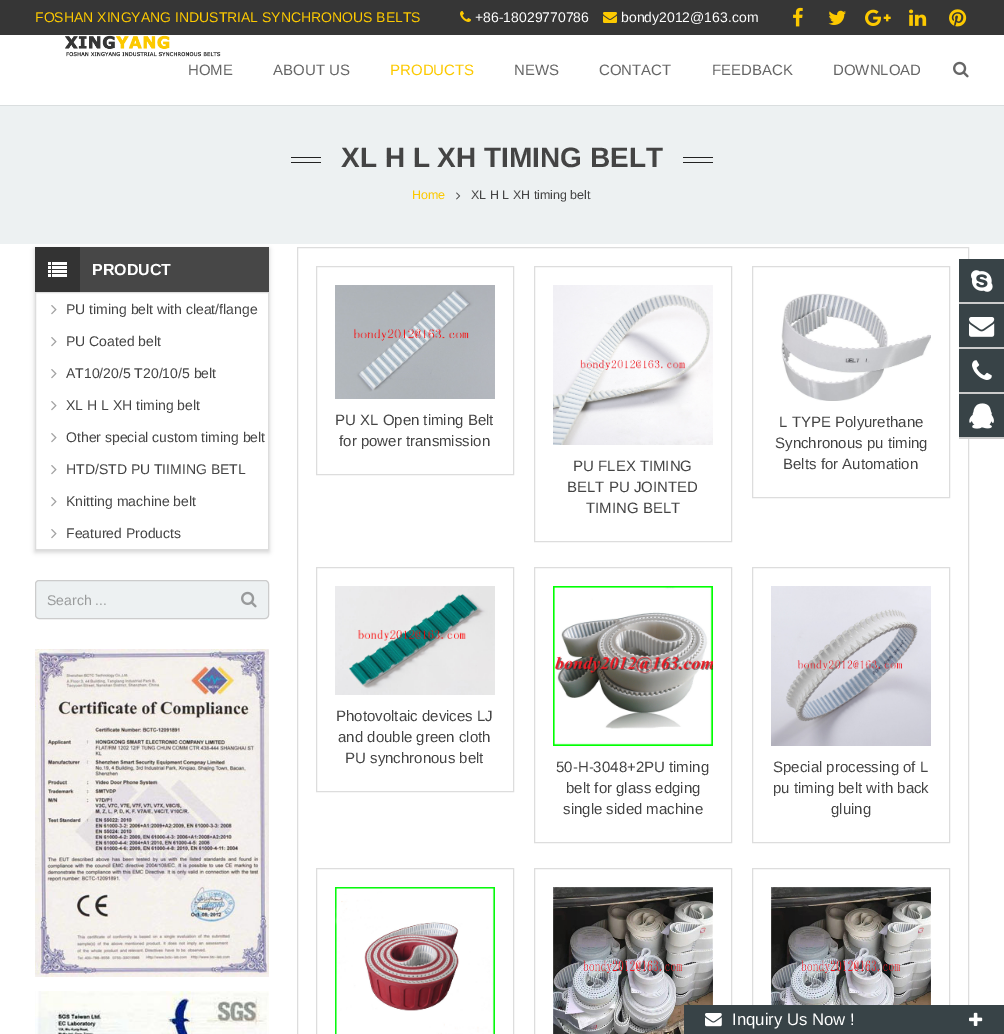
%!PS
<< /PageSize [1004 1034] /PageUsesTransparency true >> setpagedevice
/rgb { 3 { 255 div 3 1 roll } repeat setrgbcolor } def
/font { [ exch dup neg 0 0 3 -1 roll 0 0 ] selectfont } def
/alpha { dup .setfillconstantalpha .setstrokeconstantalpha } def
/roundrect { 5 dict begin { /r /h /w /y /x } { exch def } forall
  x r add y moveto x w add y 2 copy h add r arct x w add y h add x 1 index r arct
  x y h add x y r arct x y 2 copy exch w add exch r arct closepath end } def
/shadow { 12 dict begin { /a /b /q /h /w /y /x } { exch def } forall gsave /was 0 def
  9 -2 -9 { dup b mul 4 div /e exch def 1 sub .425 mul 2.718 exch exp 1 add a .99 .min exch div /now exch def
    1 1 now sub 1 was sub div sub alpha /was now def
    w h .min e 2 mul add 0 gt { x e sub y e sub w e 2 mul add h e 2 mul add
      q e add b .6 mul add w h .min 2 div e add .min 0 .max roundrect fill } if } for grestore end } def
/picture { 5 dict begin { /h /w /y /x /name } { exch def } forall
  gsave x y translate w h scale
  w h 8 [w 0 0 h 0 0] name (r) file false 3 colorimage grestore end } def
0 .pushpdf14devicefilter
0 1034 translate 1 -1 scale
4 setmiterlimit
255 255 255 rgb
0 0 1004 1034 rectfill
54 54 54 rgb
0 0 1004 35 rectfill
(img/1.rgb) 460 11 11 11 picture
(img/2.rgb) 603 12 14 11 picture
(img/3.rgb) 793 7 10 20 picture
(img/4.rgb) 828 10 18 15 picture
(img/5.rgb) 865 9 26 17 picture
(img/6.rgb) 909 9 18 17 picture
(img/7.rgb) 949 9 18 18 picture
218 222 223 rgb
0 105 1004 1 rectfill
(img/8.rgb) 65 35 156 22 picture
(img/9.rgb) 953 61 16 17 picture
gsave
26 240 moveto 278 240 lineto 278 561 lineto 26 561 lineto closepath 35 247 moveto 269 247 lineto 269 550 lineto 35 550 lineto closepath eoclip newpath
0 0 0 rgb
35 249 234 303 0 2.5 0.18 shadow
grestore
[
  [0 106 1004 138 237 241 242]
  [291 157 30 1 34 34 34]
  [291 162 30 1 34 34 34]
  [683 157 30 1 34 34 34]
  [683 162 30 1 34 34 34]
] { aload pop rgb rectfill } forall
(img/10.rgb) 456 192 5 8 picture
71 71 71 rgb
80 247 189 45 rectfill
51 51 51 rgb
35 247 45 45 rectfill
(img/11.rgb) 48 262 19 15 picture
221 221 221 rgb
35.5 292.5 233 257 rectstroke
(img/12.rgb) 51 305 6 10 picture
(img/12.rgb) 51 337 6 10 picture
(img/12.rgb) 51 369 6 10 picture
(img/12.rgb) 51 401 6 10 picture
(img/12.rgb) 51 433 6 10 picture
(img/12.rgb) 51 465 6 10 picture
(img/12.rgb) 51 497 6 10 picture
(img/12.rgb) 51 529 6 10 picture
237 241 242 rgb
35.5 580.5 233 38 3.5 roundrect gsave fill grestore
204 204 204 rgb
stroke
(img/13.rgb) 241 591 16 17 picture
(img/14.rgb) 35 649 234 328 picture
(img/15.rgb) 35 991 234 43 picture
221 221 221 rgb
297.5 247.5 671 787 rectstroke
316.5 266.5 197 208 rectstroke
(img/16.rgb) 335 285 160 114 picture
752.5 266.5 197 231 rectstroke
(img/17.rgb) 781 293 150 108 picture
534.5 266.5 197 275 rectstroke
(img/18.rgb) 553 285 160 160 picture
316.5 567.5 197 224 rectstroke
(img/19.rgb) 335 586 160 109 picture
534.5 567.5 197 275 rectstroke
(img/20.rgb) 553 586 160 160 picture
752.5 567.5 197 275 rectstroke
(img/21.rgb) 771 586 160 160 picture
316.5 868.5 197 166 rectstroke
(img/22.rgb) 335 887 160 147 picture
534.5 868.5 197 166 rectstroke
(img/23.rgb) 553 887 160 147 picture
752.5 868.5 197 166 rectstroke
(img/24.rgb) 771 887 160 118 picture
56 67 71 rgb
959 259 45 178 rectfill
204 204 204 rgb
959 302 45 2 rectfill
(img/25.rgb) 971 270 22 22 picture
959 347 45 2 rectfill
(img/26.rgb) 969 317 26 20 picture
959 392 45 2 rectfill
(img/27.rgb) 972 360 20 20 picture
959 437 45 2 rectfill
(img/28.rgb) 969 403 25 26 picture
56 67 71 rgb
684 1005 320 29 rectfill
(img/29.rgb) 705 1013 17 14 picture
(img/30.rgb) 969 1012 14 14 picture
/LiberationSans-Regular 14 font
252 201 0 rgb
35 22 moveto (FOSHAN XINGYANG INDUSTRIAL SYNCHRONOUS BELTS) show
255 255 255 rgb
475 22 moveto (+86-18029770786) show
621 22 moveto (bondy2012@163.com) show
/LiberationSans-Regular 15 font
102 102 102 rgb
188 75 moveto (HOME) show
273 75 moveto (ABOUT US) show
252 201 0 rgb
390 75 moveto (PRODUCTS) show
102 102 102 rgb
[
  [(NEWS) 514 75]
  [(CONTACT) 599 75]
  [(FEEDBACK) 712 75]
  [(DOWNLOAD) 833 75]
] { aload pop moveto show } forall
/LiberationSans-Bold 28 font
68 68 68 rgb
341 167 moveto (XL H L XH TIMING BELT) show
/LiberationSans-Regular 12.5 font
252 201 0 rgb
412 199 moveto (Home) show
68 68 68 rgb
471 199 moveto (XL H L XH timing belt) show
/LiberationSans-Bold 16 font
255 255 255 rgb
92 275 moveto (PRODUCT) show
/LiberationSans-Regular 14 font
68 68 68 rgb
[
  [(PU timing belt with cleat/flange) 66 314]
  [(PU Coated belt) 66 346]
  [(AT10/20/5 T20/10/5 belt) 66 378]
  [(XL H L XH timing belt) 66 410]
  [(Other special custom timing belt) 66 442]
  [(HTD/STD PU TIIMING BETL) 66 474]
  [(Knitting machine belt) 66 506]
  [(Featured Products) 66 538]
] { aload pop moveto show } forall
153 155 155 rgb
47 605 moveto (Search ...) show
/LiberationSans-Regular 15 font
68 68 68 rgb
[
  [(PU XL Open timing Belt) 335 425]
  [(for power transmission) 339 446]
  [(L TYPE Polyurethane) 779 427]
  [(Synchronous pu timing) 775 448]
  [(Belts for Automation) 783 469]
  [(PU FLEX TIMING) 573 471]
  [(BELT PU JOINTED) 567 492]
  [(TIMING BELT) 586 513]
  [(Photovoltaic devices LJ) 336 721]
  [(and double green cloth) 338 742]
  [(PU synchronous belt) 345 763]
  [(50-H-3048+2PU timing) 556 772]
  [(belt for glass edging) 566 793]
  [(single sided machine) 563 814]
  [(Special processing of L) 773 772]
  [(pu timing belt with back) 773 793]
  [(gluing) 831 814]
] { aload pop moveto show } forall
/LiberationSans-Regular 16.75 font
255 255 255 rgb
732 1025 moveto (Inquiry Us Now !) show
.poppdf14devicefilter showpage
